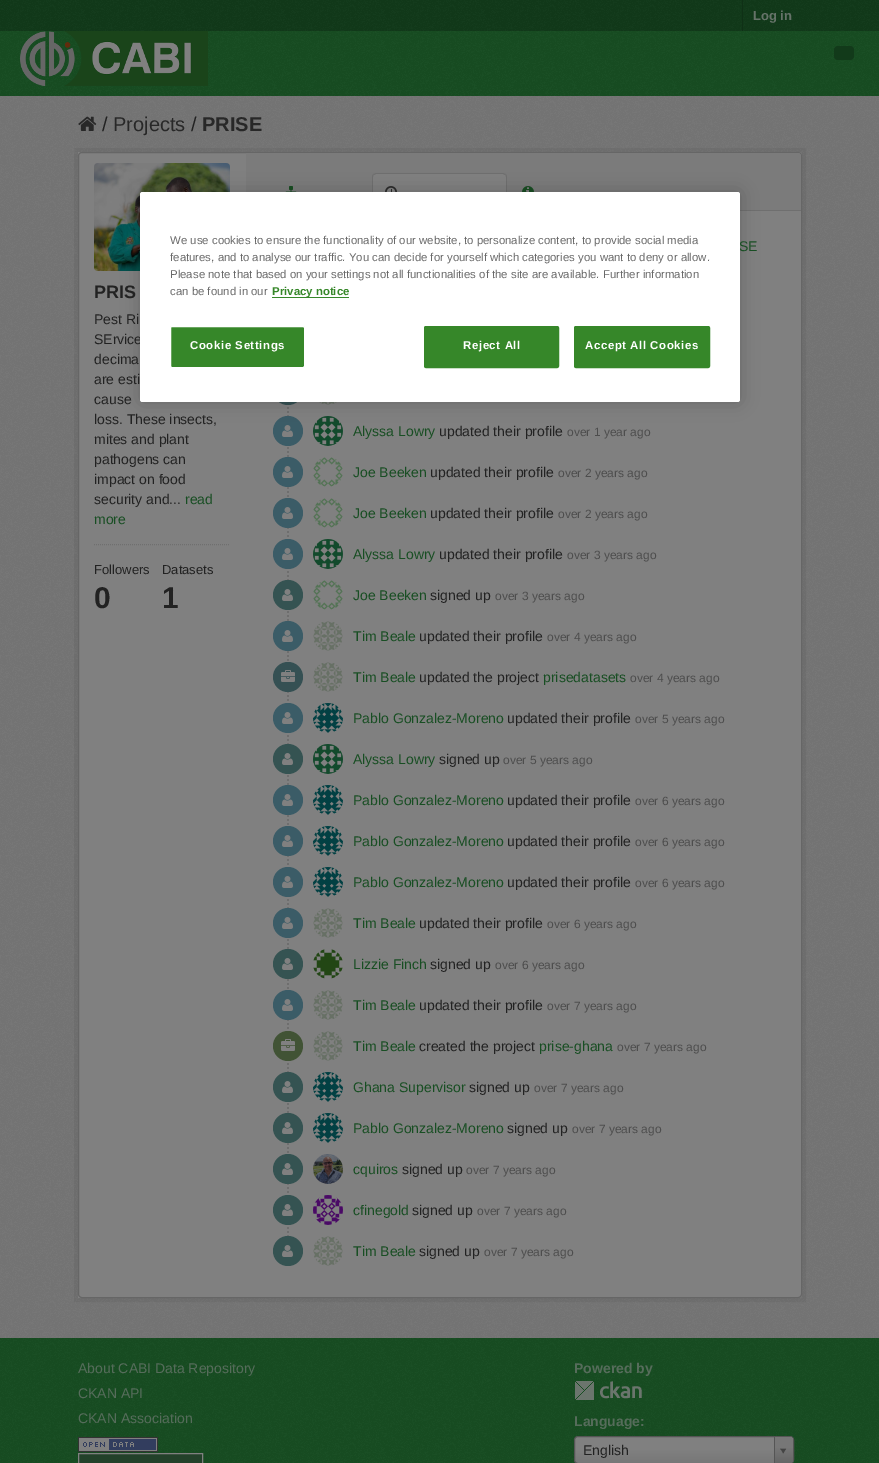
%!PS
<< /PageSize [879 1463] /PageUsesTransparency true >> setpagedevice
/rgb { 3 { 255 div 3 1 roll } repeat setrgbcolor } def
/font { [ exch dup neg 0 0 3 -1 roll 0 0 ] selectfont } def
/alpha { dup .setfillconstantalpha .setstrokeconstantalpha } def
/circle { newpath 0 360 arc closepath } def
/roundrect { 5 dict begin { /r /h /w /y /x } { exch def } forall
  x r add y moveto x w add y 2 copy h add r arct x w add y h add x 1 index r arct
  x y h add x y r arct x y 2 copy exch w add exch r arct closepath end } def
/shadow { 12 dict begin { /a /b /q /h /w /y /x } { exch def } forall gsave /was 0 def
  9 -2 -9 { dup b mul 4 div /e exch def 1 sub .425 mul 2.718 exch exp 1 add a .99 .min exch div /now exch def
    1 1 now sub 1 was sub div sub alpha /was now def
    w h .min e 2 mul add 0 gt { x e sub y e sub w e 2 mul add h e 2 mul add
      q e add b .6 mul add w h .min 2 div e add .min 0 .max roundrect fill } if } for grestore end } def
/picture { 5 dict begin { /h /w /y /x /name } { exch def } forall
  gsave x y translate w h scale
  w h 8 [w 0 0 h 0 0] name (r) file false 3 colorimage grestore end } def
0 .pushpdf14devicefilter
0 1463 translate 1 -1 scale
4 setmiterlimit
18 58 26 rgb
0 0 879 1463 rectfill
(img/1.rgb) 0 0 879 31 picture
15 48 22 rgb
742 0 1 31 rectfill
24 78 35 rgb
0 31 879 65 rectfill
(img/2.rgb) 0 31 879 65 picture
(img/3.rgb) 20 31 188 55 picture
18 58 26 rgb
834 46 20 14 4 roundrect fill
119 119 119 rgb
0 96 879 1242 rectfill
(img/4.rgb) 0 96 879 1242 picture
(img/5.rgb) 78 116 19 15 picture
0.05 alpha
0 0 0 rgb
4 setlinewidth
76 150 728 1150 rectstroke
1 alpha
128 128 128 rgb
78 152 724 1146 4 roundrect fill
78 152 3 1146 rectfill
102 102 102 rgb
1 setlinewidth
78.5 152.5 723 1145 3.5 roundrect stroke
(img/6.rgb) 94 163 136 108 picture
111 111 111 rgb
[1 1] 0 setdash
94 544.5 moveto 230 544.5 lineto stroke
123 123 123 rgb
246 153 moveto 798 153 lineto 799.5 153 801 154.5 801 156 curveto 801 211 lineto 246 211 lineto closepath fill
111 111 111 rgb
740 210 61 1 rectfill
(img/7.rgb) 285 186 12 6 picture
128 128 128 rgb
376 173 moveto 503 173 lineto 505 173 507 175 507 177 curveto 507 211 lineto 372 211 lineto 372 177 lineto 372 175 374 173 376 173 curveto closepath fill
111 111 111 rgb
376 173 moveto 373 174 lineto 374 175 lineto 376 174 lineto 503 174 lineto 505 175 lineto 506 174 lineto 503 173 lineto closepath fill
507 211 moveto 507 177 lineto 507 176 506.5 175 506 174 curveto 505 175 lineto 506 175 506 176 506 177 curveto 506 210 lineto closepath fill
372 211 moveto 373 210 lineto 373 177 lineto 373 176 373 175 374 175 curveto 373 174 lineto 372.5 175 372 176 372 177 curveto closepath fill
(img/8.rgb) 385 186 12 6 picture
(img/9.rgb) 522 186 12 6 picture
(img/10.rgb) 287 404 2 833 picture
53 80 83 rgb
288 390 15 circle fill
(img/11.rgb) 319 402 18 3 picture
59 92 103 rgb
288 431 15 circle fill
(img/12.rgb) 282 425 11 12 picture
(img/13.rgb) 313 416 30 30 picture
288 472 15 circle fill
(img/12.rgb) 282 466 11 12 picture
(img/14.rgb) 313 457 30 30 picture
288 513 15 circle fill
(img/12.rgb) 282 507 11 12 picture
(img/15.rgb) 313 498 30 30 picture
288 554 15 circle fill
(img/12.rgb) 282 548 11 12 picture
(img/13.rgb) 313 539 30 30 picture
53 83 82 rgb
288 595 15 circle fill
(img/16.rgb) 282 589 11 12 picture
(img/14.rgb) 313 580 30 30 picture
59 92 103 rgb
288 636 15 circle fill
(img/12.rgb) 282 630 11 12 picture
(img/17.rgb) 313 621 30 30 picture
53 80 83 rgb
288 677 15 circle fill
(img/18.rgb) 281 670 14 12 picture
(img/17.rgb) 313 662 30 30 picture
59 92 103 rgb
288 718 15 circle fill
(img/12.rgb) 282 712 11 12 picture
(img/19.rgb) 313 703 30 30 picture
53 83 82 rgb
288 759 15 circle fill
(img/16.rgb) 282 753 11 12 picture
(img/20.rgb) 313 744 30 30 picture
59 92 103 rgb
288 800 15 circle fill
(img/12.rgb) 282 794 11 12 picture
(img/19.rgb) 313 785 30 30 picture
288 841 15 circle fill
(img/12.rgb) 282 835 11 12 picture
(img/19.rgb) 313 826 30 30 picture
288 882 15 circle fill
(img/12.rgb) 282 876 11 12 picture
(img/19.rgb) 313 867 30 30 picture
288 923 15 circle fill
(img/12.rgb) 282 917 11 12 picture
(img/17.rgb) 313 908 30 30 picture
53 83 82 rgb
288 964 15 circle fill
(img/16.rgb) 282 958 11 12 picture
(img/21.rgb) 313 949 30 30 picture
59 92 103 rgb
288 1005 15 circle fill
(img/12.rgb) 282 999 11 12 picture
(img/22.rgb) 313 990 30 30 picture
65 83 53 rgb
288 1046 15 circle fill
(img/23.rgb) 281 1039 14 12 picture
(img/17.rgb) 313 1031 30 30 picture
53 83 82 rgb
288 1087 15 circle fill
(img/16.rgb) 282 1081 11 12 picture
(img/19.rgb) 313 1072 30 30 picture
288 1128 15 circle fill
(img/16.rgb) 282 1122 11 12 picture
(img/19.rgb) 313 1113 30 30 picture
288 1169 15 circle fill
(img/16.rgb) 282 1163 11 12 picture
(img/24.rgb) 313 1154 30 30 picture
288 1210 15 circle fill
(img/16.rgb) 282 1204 11 12 picture
(img/25.rgb) 313 1195 30 30 picture
288 1251 15 circle fill
(img/16.rgb) 282 1245 11 12 picture
(img/17.rgb) 313 1236 30 30 picture
0 0 0 rgb
140 192 600 210 2.5 9 0.2 shadow
24 78 35 rgb
0 1338 879 125 rectfill
(img/26.rgb) 0 1338 879 125 picture
(img/27.rgb) 78 1437 80 15 picture
35 65 42 rgb
78.5 1453.5 moveto 202.5 1453.5 lineto 202.5 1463.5 lineto 78.5 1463.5 lineto closepath gsave fill grestore
128 128 128 rgb
[] 0 setdash
stroke
(img/28.rgb) 575 1381 67 19 picture
gsave 575 1437 218 26 3 roundrect clip newpath
<< /ShadingType 2 /ColorSpace /DeviceRGB /Coords [684 1463 684 1437] /Extend [true true] /Function << /FunctionType 3 /Domain [0 1] /Functions [<< /FunctionType 2 /Domain [0 1] /C0 [0.467 0.467 0.467] /C1 [0.502 0.502 0.502] /N 1 >> << /FunctionType 2 /Domain [0 1] /C0 [0.502 0.502 0.502] /C1 [0.502 0.502 0.502] /N 1 >>] /Bounds [0.5] /Encode [0 1 0 1] >> >> shfill grestore
85 85 85 rgb
574.5 1436.5 219 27 3.5 roundrect stroke
gsave
575 1437 218 26 3 roundrect clip newpath
gsave 774 1437 moveto 789 1437 lineto 791 1437 793 1439 793 1441 curveto 793 1459 lineto 793 1461 791 1463 789 1463 curveto 774 1463 lineto closepath clip newpath
<< /ShadingType 2 /ColorSpace /DeviceRGB /Coords [784 1463 784 1437] /Extend [true true] /Function << /FunctionType 3 /Domain [0 1] /Functions [<< /FunctionType 2 /Domain [0 1] /C0 [0.4 0.4 0.4] /C1 [0.467 0.467 0.467] /N 1 >> << /FunctionType 2 /Domain [0 1] /C0 [0.467 0.467 0.467] /C1 [0.467 0.467 0.467] /N 1 >>] /Bounds [0.6] /Encode [0 1 0 1] >> >> shfill grestore
grestore
774 1437 1 26 rectfill
(img/29.rgb) 780 1448 7 6 picture
/LiberationSans-Bold 13 font
102 115 105 rgb
753 20 moveto (Log in) show
/LiberationSans-Regular 20 font
34 34 34 rgb
102 131 moveto (/) show
40 40 40 rgb
113 131 moveto (Projects) show
34 34 34 rgb
191 131 moveto (/) show
/LiberationSans-Bold 20 font
40 40 40 rgb
202 131 moveto (PRISE) show
/LiberationSans-Bold 18 font
34 34 34 rgb
94 298 moveto (PRIS) show
/LiberationSans-Regular 14 font
[
  [(Pest Ri) 94 324]
  [(SErvice) 94 344]
  [(decima) 94 364]
  [(are esti) 94 384]
  [(cause) 94 404]
  [(loss. These insects,) 94 424]
  [(mites and plant) 94 444]
  [(pathogens can) 94 464]
  [(impact on food) 94 484]
  [(security and...) 94 504]
] { aload pop moveto show } forall
24 78 35 rgb
185 504 moveto (read) show
94 524 moveto (more) show
/LiberationSans-Regular 13 font
34 34 34 rgb
94 574 moveto (Followers) show
/LiberationSans-Bold 30 font
94 608 moveto (0) show
/LiberationSans-Regular 13 font
162 574 moveto (Datasets) show
/LiberationSans-Bold 30 font
162 608 moveto (1) show
/LiberationSans-Regular 14 font
24 78 35 rgb
739 251 moveto (SE) show
353 436 moveto (Alyssa Lowry) show
34 34 34 rgb
439 436 moveto (updated their profile) show
/LiberationSans-Regular 12 font
77 77 77 rgb
567 436 moveto (over 1 year ago) show
/LiberationSans-Regular 14 font
24 78 35 rgb
353 477 moveto (Joe Beeken) show
34 34 34 rgb
430 477 moveto (updated their profile) show
/LiberationSans-Regular 12 font
77 77 77 rgb
558 477 moveto (over 2 years ago) show
/LiberationSans-Regular 14 font
24 78 35 rgb
353 518 moveto (Joe Beeken) show
34 34 34 rgb
430 518 moveto (updated their profile) show
/LiberationSans-Regular 12 font
77 77 77 rgb
558 518 moveto (over 2 years ago) show
/LiberationSans-Regular 14 font
24 78 35 rgb
353 559 moveto (Alyssa Lowry) show
34 34 34 rgb
439 559 moveto (updated their profile) show
/LiberationSans-Regular 12 font
77 77 77 rgb
567 559 moveto (over 3 years ago) show
/LiberationSans-Regular 14 font
24 78 35 rgb
353 600 moveto (Joe Beeken) show
34 34 34 rgb
430 600 moveto (signed up) show
/LiberationSans-Regular 12 font
77 77 77 rgb
495 600 moveto (over 3 years ago) show
/LiberationSans-Regular 14 font
24 78 35 rgb
353 641 moveto (Tim Beale) show
34 34 34 rgb
419 641 moveto (updated their profile) show
/LiberationSans-Regular 12 font
77 77 77 rgb
547 641 moveto (over 4 years ago) show
/LiberationSans-Regular 14 font
24 78 35 rgb
353 682 moveto (Tim Beale) show
34 34 34 rgb
419 682 moveto (updated the project) show
24 78 35 rgb
543 682 moveto (prisedatasets) show
/LiberationSans-Regular 12 font
77 77 77 rgb
630 682 moveto (over 4 years ago) show
/LiberationSans-Regular 14 font
24 78 35 rgb
353 723 moveto (Pablo Gonzalez-Moreno) show
34 34 34 rgb
507 723 moveto (updated their profile) show
/LiberationSans-Regular 12 font
77 77 77 rgb
635 723 moveto (over 5 years ago) show
/LiberationSans-Regular 14 font
24 78 35 rgb
353 764 moveto (Alyssa Lowry) show
34 34 34 rgb
439 764 moveto (signed up) show
/LiberationSans-Regular 12 font
77 77 77 rgb
503 764 moveto (over 5 years ago) show
/LiberationSans-Regular 14 font
24 78 35 rgb
353 805 moveto (Pablo Gonzalez-Moreno) show
34 34 34 rgb
507 805 moveto (updated their profile) show
/LiberationSans-Regular 12 font
77 77 77 rgb
635 805 moveto (over 6 years ago) show
/LiberationSans-Regular 14 font
24 78 35 rgb
353 846 moveto (Pablo Gonzalez-Moreno) show
34 34 34 rgb
507 846 moveto (updated their profile) show
/LiberationSans-Regular 12 font
77 77 77 rgb
635 846 moveto (over 6 years ago) show
/LiberationSans-Regular 14 font
24 78 35 rgb
353 887 moveto (Pablo Gonzalez-Moreno) show
34 34 34 rgb
507 887 moveto (updated their profile) show
/LiberationSans-Regular 12 font
77 77 77 rgb
635 887 moveto (over 6 years ago) show
/LiberationSans-Regular 14 font
24 78 35 rgb
353 928 moveto (Tim Beale) show
34 34 34 rgb
419 928 moveto (updated their profile) show
/LiberationSans-Regular 12 font
77 77 77 rgb
547 928 moveto (over 6 years ago) show
/LiberationSans-Regular 14 font
24 78 35 rgb
353 969 moveto (Lizzie Finch) show
34 34 34 rgb
430 969 moveto (signed up) show
/LiberationSans-Regular 12 font
77 77 77 rgb
495 969 moveto (over 6 years ago) show
/LiberationSans-Regular 14 font
24 78 35 rgb
353 1010 moveto (Tim Beale) show
34 34 34 rgb
419 1010 moveto (updated their profile) show
/LiberationSans-Regular 12 font
77 77 77 rgb
547 1010 moveto (over 7 years ago) show
/LiberationSans-Regular 14 font
24 78 35 rgb
353 1051 moveto (Tim Beale) show
34 34 34 rgb
419 1051 moveto (created the project) show
24 78 35 rgb
539 1051 moveto (prise-ghana) show
/LiberationSans-Regular 12 font
77 77 77 rgb
617 1051 moveto (over 7 years ago) show
/LiberationSans-Regular 14 font
24 78 35 rgb
353 1092 moveto (Ghana Supervisor) show
34 34 34 rgb
469 1092 moveto (signed up) show
/LiberationSans-Regular 12 font
77 77 77 rgb
534 1092 moveto (over 7 years ago) show
/LiberationSans-Regular 14 font
24 78 35 rgb
353 1133 moveto (Pablo Gonzalez-Moreno) show
34 34 34 rgb
507 1133 moveto (signed up) show
/LiberationSans-Regular 12 font
77 77 77 rgb
572 1133 moveto (over 7 years ago) show
/LiberationSans-Regular 14 font
24 78 35 rgb
353 1174 moveto (cquiros) show
34 34 34 rgb
402 1174 moveto (signed up) show
/LiberationSans-Regular 12 font
77 77 77 rgb
466 1174 moveto (over 7 years ago) show
/LiberationSans-Regular 14 font
24 78 35 rgb
353 1215 moveto (cfinegold) show
34 34 34 rgb
412 1215 moveto (signed up) show
/LiberationSans-Regular 12 font
77 77 77 rgb
477 1215 moveto (over 7 years ago) show
/LiberationSans-Regular 14 font
24 78 35 rgb
353 1256 moveto (Tim Beale) show
34 34 34 rgb
419 1256 moveto (signed up) show
/LiberationSans-Regular 12 font
77 77 77 rgb
484 1256 moveto (over 7 years ago) show
255 255 255 rgb
140 192 600 210 2.5 roundrect fill
/LiberationSans-Regular 11.4 font
105 105 105 rgb
[
  [(We use cookies to ensure the functionality of our website, to personalize content, to provide social media) 170 244]
  [(features, and to analyse our traffic. You can decide for yourself which categories you want to deny or allow.) 170 261]
  [(Please note that based on your settings not all functionalities of the site are available. Further information) 170 278]
  [(can be found in our) 170 295]
] { aload pop moveto show } forall
54 135 41 rgb
272 297 77 1 rectfill
/LiberationSans-Bold 11.4 font
272 295 moveto (Privacy notice) show
170.5 326.5 134 41 1.5 roundrect gsave fill grestore
255 255 255 rgb
stroke
190 349 moveto 0.6 0 (Cookie Settings) ashow
54 135 41 rgb
424.5 326.5 134 41 1.5 roundrect gsave fill grestore
stroke
255 255 255 rgb
463 349 moveto 0.6 0 (Reject All) ashow
54 135 41 rgb
574.5 326.5 135 41 1.5 roundrect gsave fill grestore
stroke
255 255 255 rgb
585 349 moveto 0.6 0 (Accept All Cookies) ashow
/LiberationSans-Regular 14 font
86 108 91 rgb
[
  [(About CABI Data Repository) 78 1373]
  [(CKAN API) 78 1398]
  [(CKAN Association) 78 1423]
] { aload pop moveto show } forall
/LiberationSans-Bold 14 font
574 1373 moveto (Powered by) show
574 1426 moveto (Language:) show
/LiberationSans-Regular 14 font
34 34 34 rgb
583 1455 moveto (English) show
.poppdf14devicefilter showpage
